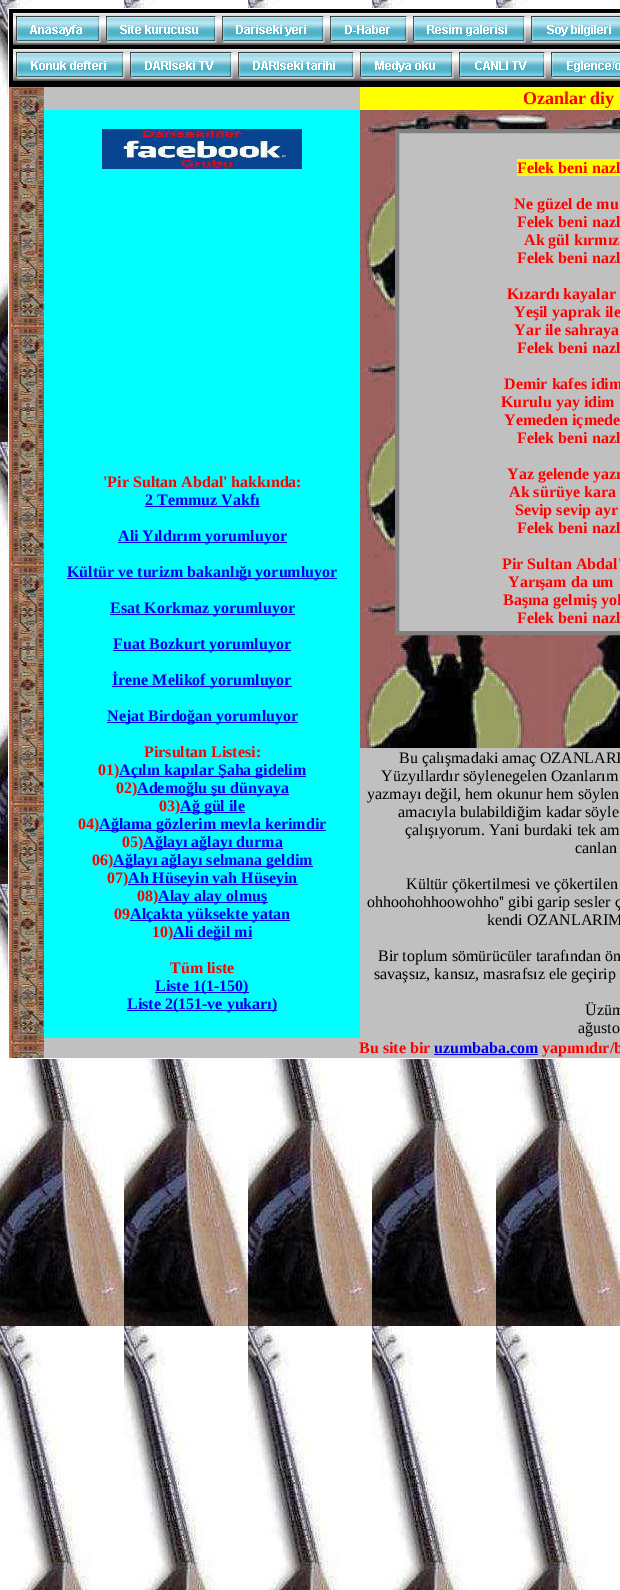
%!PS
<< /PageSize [620 1590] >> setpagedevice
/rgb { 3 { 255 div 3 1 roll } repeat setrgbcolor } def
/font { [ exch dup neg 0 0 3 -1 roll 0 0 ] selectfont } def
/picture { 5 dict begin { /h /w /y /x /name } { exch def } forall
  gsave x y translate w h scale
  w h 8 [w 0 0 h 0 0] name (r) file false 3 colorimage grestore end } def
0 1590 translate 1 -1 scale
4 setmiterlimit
255 255 255 rgb
0 0 620 1590 rectfill
(img/1.rgb) 0 0 620 1590 picture
[
  [8 8 519 1 255 255 255]
  [20 1058 556 1 255 255 255]
  [8 8 1 1028 255 255 255]
  [9 9 611 78 0 0 0]
] { aload pop rgb rectfill } forall
(img/2.rgb) 13 13 8 32 picture
(img/3.rgb) 21 13 74 32 picture
(img/4.rgb) 95 13 16 32 picture
(img/5.rgb) 111 13 100 32 picture
(img/4.rgb) 211 13 16 32 picture
(img/6.rgb) 227 13 92 32 picture
(img/4.rgb) 319 13 16 32 picture
(img/7.rgb) 335 13 67 32 picture
(img/4.rgb) 402 13 16 32 picture
(img/8.rgb) 418 13 102 32 picture
(img/4.rgb) 520 13 16 32 picture
(img/9.rgb) 536 13 84 32 picture
(img/2.rgb) 13 49 8 32 picture
(img/10.rgb) 21 49 98 32 picture
(img/4.rgb) 119 49 16 32 picture
(img/11.rgb) 135 49 92 32 picture
(img/4.rgb) 227 49 16 32 picture
(img/12.rgb) 243 49 106 32 picture
(img/4.rgb) 349 49 16 32 picture
(img/13.rgb) 365 49 83 32 picture
(img/4.rgb) 448 49 16 32 picture
(img/14.rgb) 464 49 76 32 picture
(img/4.rgb) 540 49 16 32 picture
(img/15.rgb) 556 49 64 32 picture
(img/16.rgb) 9 87 35 971 picture
192 192 192 rgb
44 87 316 23 rectfill
255 255 0 rgb
360 87 260 23 rectfill
(img/17.rgb) 360 110 260 638 picture
192 192 192 rgb
397 131 moveto 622 131 lineto 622 633 lineto 397 633 lineto closepath gsave fill grestore
128 128 128 rgb
4 setlinewidth
stroke
255 255 0 rgb
517 159 103 17 rectfill
0 255 255 rgb
44 110 316 928 rectfill
(img/18.rgb) 102 129 200 40 picture
[
  [145 506 115 1 0 0 238]
  [118 542 169 1 0 0 238]
  [67 578 270 1 0 0 238]
  [110 614 185 1 0 0 238]
  [113 650 178 1 0 0 238]
  [112 686 180 1 0 0 238]
  [107 722 191 1 0 0 238]
  [119 776 187 1 0 0 238]
  [137 794 152 1 0 0 238]
  [180 812 65 1 0 0 238]
  [99 830 227 1 0 0 238]
  [143 848 140 1 0 0 238]
  [113 866 200 1 0 0 238]
  [128 884 170 1 0 0 238]
  [158 902 110 1 0 0 238]
  [130 920 160 1 0 0 238]
  [173 938 79 1 0 0 238]
  [155 992 94 1 0 0 238]
  [127 1010 150 1 0 0 238]
  [360 748 260 290 192 192 192]
  [44 1038 576 20 192 192 192]
  [434 1054 104 1 0 0 238]
] { aload pop rgb rectfill } forall
/LiberationSerif-Bold 18 font
255 0 0 rgb
523 104 moveto (Ozanlar diy) show
/LiberationSerif-Bold 16 font
[
  [(Felek beni nazl) 517 173]
  [(Ne güzel de mu) 514 209]
  [(Felek beni nazl) 517 227]
  [(Ak gül kırmız) 524 245]
  [(Felek beni nazl) 517 263]
  [(Kızardı kayalar) 507 299]
  [(Yeşil yaprak ile) 514 317]
  [(Yar ile sahraya) 514 335]
  [(Felek beni nazl) 517 353]
  [(Demir kafes idim) 504 389]
  [(Kurulu yay idim) 501 407]
  [(Yemeden içmede) 504 425]
  [(Felek beni nazl) 517 443]
  [(Yaz gelende yazı) 507 479]
  [(Ak sürüye kara) 509 497]
  [(Sevip sevip ayr) 515 515]
  [(Felek beni nazl) 517 533]
  [(Pir Sultan Abdal') 502 569]
  [(Yarışam da um) 508 587]
  [(Başına gelmiş yok) 503 605]
  [(Felek beni nazl) 517 623]
  [('Pir Sultan Abdal' hakkında:) 103 487]
] { aload pop moveto show } forall
0 0 238 rgb
[
  [(2 Temmuz Vakfı) 145 505]
  [(Ali Yıldırım yorumluyor) 118 541]
  [(Kültür ve turizm bakanlığı yorumluyor) 67 577]
  [(Esat Korkmaz yorumluyor) 110 613]
  [(Fuat Bozkurt yorumluyor) 113 649]
  [(İrene Melikof yorumluyor) 112 685]
  [(Nejat Birdoğan yorumluyor) 107 721]
] { aload pop moveto show } forall
255 0 0 rgb
144 757 moveto (Pirsultan Listesi:) show
98 775 moveto (01\)) show
0 0 238 rgb
119 775 moveto (Açılın kapılar Şaha gidelim) show
255 0 0 rgb
116 793 moveto (02\)) show
0 0 238 rgb
137 793 moveto (Ademoğlu şu dünyaya) show
255 0 0 rgb
159 811 moveto (03\)) show
0 0 238 rgb
180 811 moveto (Ağ gül ile) show
255 0 0 rgb
78 829 moveto (04\)) show
0 0 238 rgb
99 829 moveto (Ağlama gözlerim mevla kerimdir) show
255 0 0 rgb
122 847 moveto (05\)) show
0 0 238 rgb
143 847 moveto (Ağlayı ağlayı durma) show
255 0 0 rgb
92 865 moveto (06\)) show
0 0 238 rgb
113 865 moveto (Ağlayı ağlayı selmana geldim) show
255 0 0 rgb
107 883 moveto (07\)) show
0 0 238 rgb
128 883 moveto (Ah Hüseyin vah Hüseyin) show
255 0 0 rgb
137 901 moveto (08\)) show
0 0 238 rgb
158 901 moveto (Alay alay olmuş) show
255 0 0 rgb
114 919 moveto (09) show
0 0 238 rgb
130 919 moveto (Alçakta yüksekte yatan) show
255 0 0 rgb
152 937 moveto (10\)) show
0 0 238 rgb
173 937 moveto (Ali değil mi) show
255 0 0 rgb
170 973 moveto (Tüm liste) show
0 0 238 rgb
155 991 moveto (Liste 1\(1-150\)) show
127 1009 moveto (Liste 2\(151-ve yukarı\)) show
/LiberationSerif-Regular 16 font
0 0 0 rgb
[
  [(Bu çalışmadaki amaç OZANLARI) 399 763]
  [(Yüzyıllardır söylenegelen Ozanlarım) 381 781]
  [(yazmayı değil, hem okunur hem söylen) 367 799]
  [(amacıyla bulabildiğim kadar söyle) 398 817]
  [(çalışıyorum. Yani burdaki tek am) 405 835]
  [(canlan) 575 853]
  [(Kültür çökertilmesi ve çökertilen) 406 889]
  [(ohhoohohhoowohho'' gibi garip sesler ç) 367 907]
  [(kendi OZANLARIM) 487 925]
  [(Bir toplum sömürücüler tarafından ön) 378 961]
  [(savaşsız, kansız, masrafsız ele geçirip) 374 979]
  [(Üzüm) 585 1015]
  [(ağusto) 578 1033]
] { aload pop moveto show } forall
/LiberationSerif-Bold 16 font
255 0 0 rgb
359 1053 moveto (Bu site bir) show
0 0 238 rgb
434 1053 moveto (uzumbaba.com) show
255 0 0 rgb
542 1053 moveto (yapımıdır/b) show
showpage
